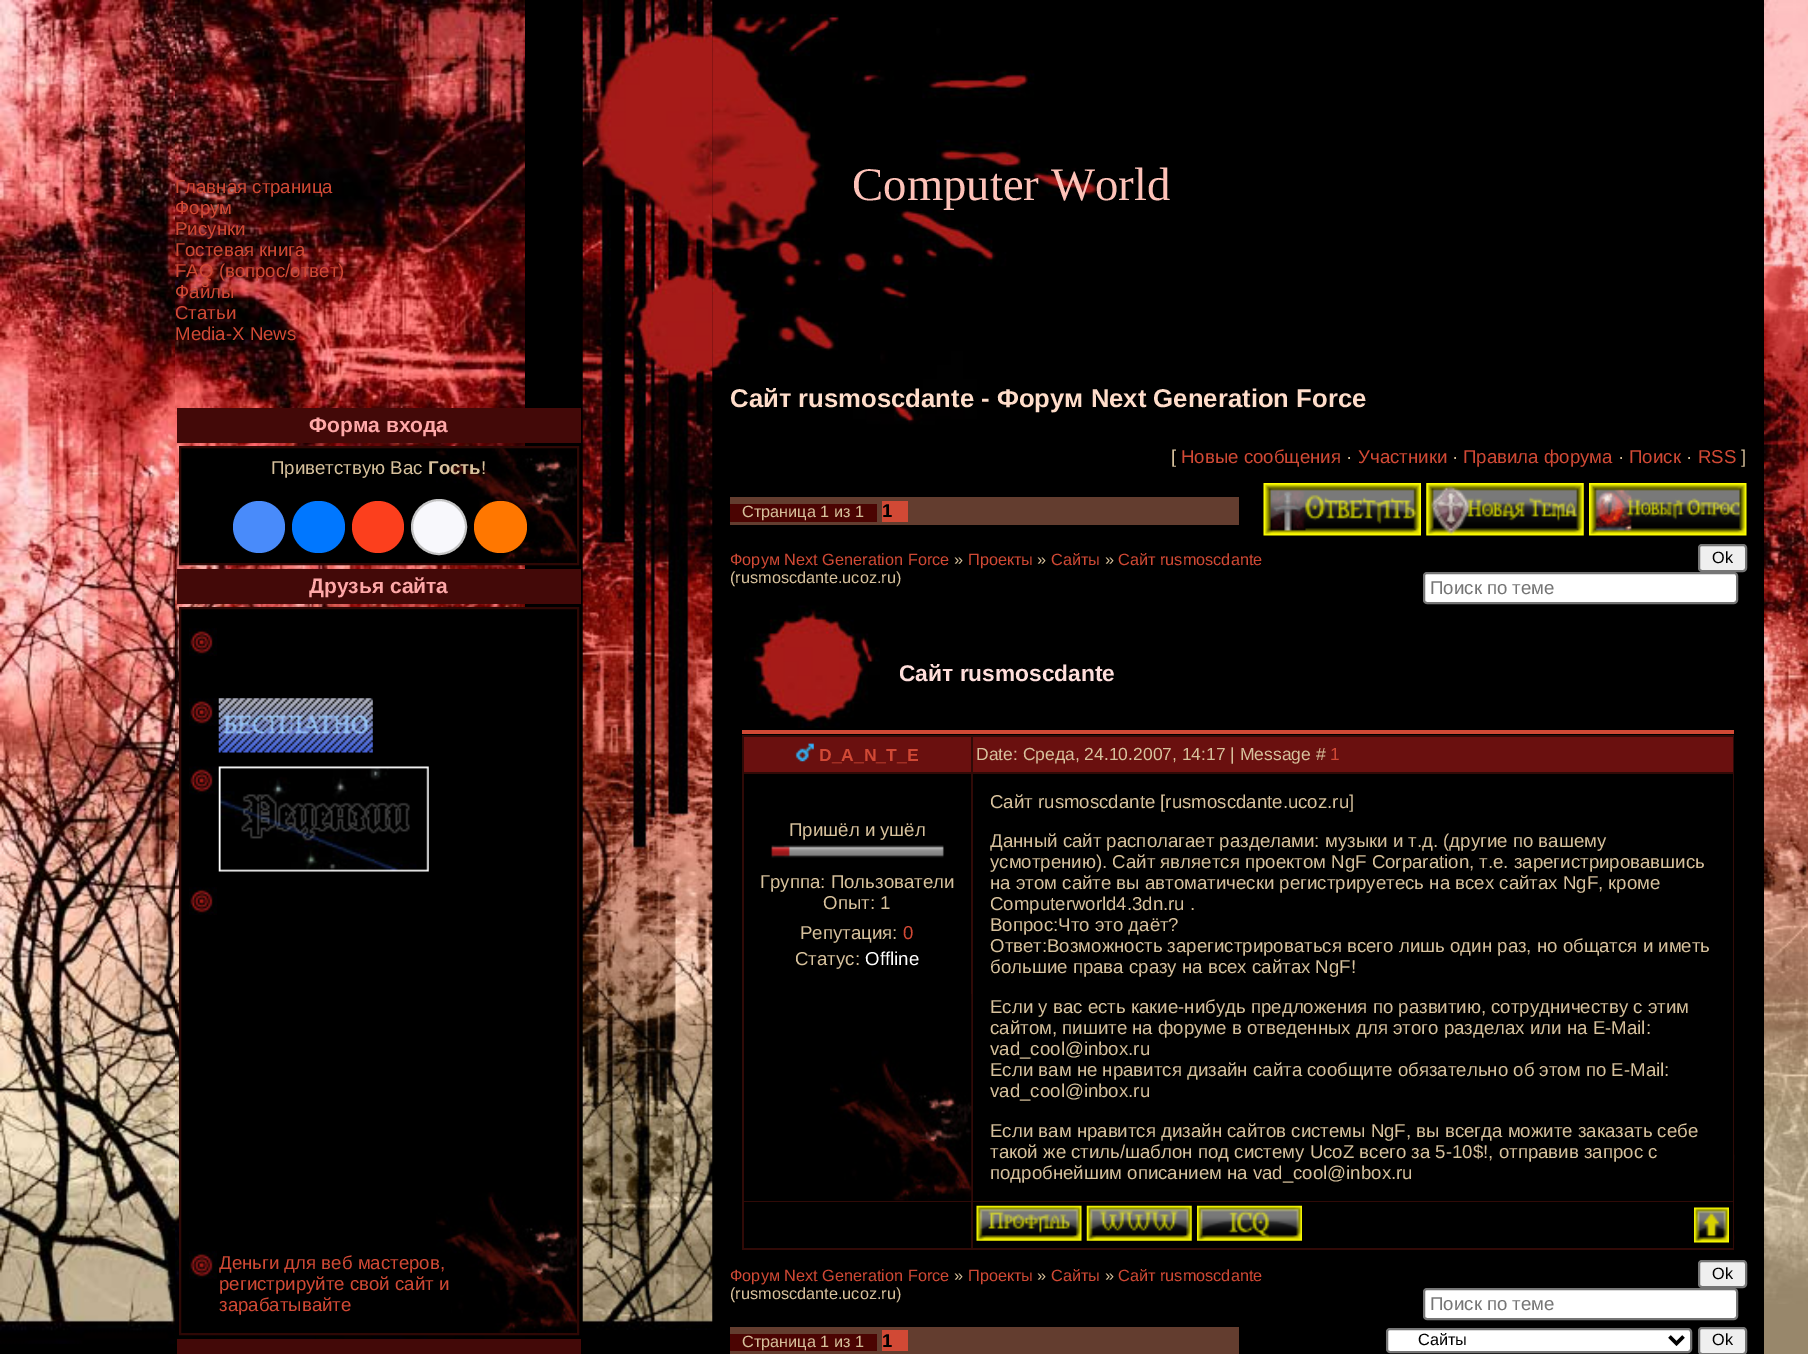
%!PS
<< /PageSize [1808 1354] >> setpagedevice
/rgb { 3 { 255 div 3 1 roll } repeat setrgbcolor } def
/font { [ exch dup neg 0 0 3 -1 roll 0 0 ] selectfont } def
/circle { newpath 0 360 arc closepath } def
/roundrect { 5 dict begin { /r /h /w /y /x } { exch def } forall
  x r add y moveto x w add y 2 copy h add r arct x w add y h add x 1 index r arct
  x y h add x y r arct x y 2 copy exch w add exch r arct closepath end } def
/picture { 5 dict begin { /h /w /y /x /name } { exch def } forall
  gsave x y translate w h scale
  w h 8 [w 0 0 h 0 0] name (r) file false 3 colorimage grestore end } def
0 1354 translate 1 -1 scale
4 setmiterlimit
0 0 0 rgb
0 0 1808 1354 rectfill
(img/1.rgb) 0 0 175 1344 picture
(img/2.rgb) 175 0 350 1345 picture
67 9 8 rgb
177 408 404 35 rectfill
0 0 0 rgb
181 448 255 115 rectfill
(img/3.rgb) 436 448 141 115 picture
46 8 5 rgb
2 setlinewidth
180 447 398 117 rectstroke
73 139 250 rgb
259 527 26 circle fill
0 119 255 rgb
292 501 53 52 26 roundrect fill
252 63 29 rgb
378 527 26 circle fill
248 248 252 rgb
439 527 27 circle gsave fill grestore
196 196 196 rgb
stroke
255 119 0 rgb
474 501 53 52 26 roundrect fill
67 9 8 rgb
177 569 404 35 rectfill
0 0 0 rgb
181 609 344 724 rectfill
(img/4.rgb) 436 1192 141 141 picture
46 8 5 rgb
180 608 398 726 rectstroke
(img/5.rgb) 189 628 28 28 picture
(img/5.rgb) 189 698 28 28 picture
(img/6.rgb) 218 698 155 55 picture
(img/7.rgb) 189 766 28 29 picture
(img/8.rgb) 218 766 211 106 picture
(img/5.rgb) 189 887 28 28 picture
(img/5.rgb) 189 1251 28 28 picture
67 9 8 rgb
177 1339 404 15 rectfill
(img/10.rgb) 712 14 392 411 picture
(img/9.rgb) 582 0 131 1330 picture
[
  [730 497 509 28 99 61 47]
  [730 504 147 18 75 4 2]
  [882 501 26 21 209 73 53]
] { aload pop rgb rectfill } forall
(img/11.rgb) 1263 483 158 53 picture
(img/12.rgb) 1426 483 158 53 picture
(img/13.rgb) 1589 483 158 53 picture
239 239 239 rgb
1699 545 47 26 3 roundrect gsave fill grestore
118 118 118 rgb
stroke
255 255 255 rgb
1424 573 313 30 3 roundrect gsave fill grestore
118 118 118 rgb
stroke
(img/14.rgb) 744 605 136 123 picture
209 73 53 rgb
742 730 992 4 rectfill
(img/15.rgb) 1734 1108 1 142 picture
48 10 7 rgb
742 735 992 515 rectfill
106 16 15 rgb
744 737 227 35 rectfill
(img/16.rgb) 795 743 19 19 picture
973 737 760 35 rectfill
0 0 0 rgb
744 774 227 427 rectfill
(img/17.rgb) 830 994 142 207 picture
(img/18.rgb) 770 845 175 13 picture
[
  [973 774 760 427 0 0 0]
  [744 1202 227 46 0 0 0]
  [973 1202 760 46 0 0 0]
] { aload pop rgb rectfill } forall
(img/19.rgb) 976 1205 106 36 picture
(img/20.rgb) 1086 1205 106 36 picture
(img/21.rgb) 1197 1205 105 36 picture
(img/22.rgb) 1694 1207 35 36 picture
239 239 239 rgb
1699 1261 47 26 3 roundrect gsave fill grestore
118 118 118 rgb
stroke
255 255 255 rgb
1424 1289 313 30 3 roundrect gsave fill grestore
118 118 118 rgb
stroke
[
  [730 1327 509 27 99 61 47]
  [730 1334 147 17 75 4 2]
  [882 1330 26 21 209 73 53]
] { aload pop rgb rectfill } forall
255 255 255 rgb
1387 1329 304 23 3 roundrect gsave fill grestore
118 118 118 rgb
stroke
0 0 0 rgb
3.5 setlinewidth
1669.5 1336.5 moveto 1676.5 1343.5 lineto 1683.5 1336.5 lineto stroke
239 239 239 rgb
1699 1328 47 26 3 roundrect gsave fill grestore
118 118 118 rgb
2 setlinewidth
stroke
152 135 107 rgb
1764 1304 44 50 rectfill
(img/23.rgb) 1764 0 44 1304 picture
/LiberationSans-Regular 18.65 font
209 73 53 rgb
[
  [(Главная страница) 175 193]
  [(Форум) 175 214]
  [(Рисунки) 175 235]
  [(Гостевая книга) 175 256]
  [(FAQ \(вопрос/ответ\)) 175 277]
  [(Файлы) 175 298]
  [(Cтатьи) 175 319]
  [(Media-X News) 175 340]
] { aload pop moveto show } forall
/LiberationSans-Bold 21 font
255 168 168 rgb
309 432 moveto (Форма входа) show
/LiberationSans-Regular 18.65 font
215 193 156 rgb
271 474 moveto (Приветствую Вас) show
/LiberationSans-Bold 18.65 font
428 474 moveto (Гость) show
/LiberationSans-Regular 18.65 font
481 474 moveto (!) show
/LiberationSans-Bold 21 font
255 168 168 rgb
309 593 moveto (Друзья сайта) show
/LiberationSans-Regular 18.65 font
209 73 53 rgb
[
  [(Деньги для веб мастеров,) 219 1269]
  [(регистрируйте свой сайт и) 219 1290]
  [(зарабатывайте) 219 1311]
] { aload pop moveto show } forall
/LiberationSerif-Regular 46.75 font
254 194 184 rgb
852 200 moveto (Computer World) show
/LiberationSans-Bold 25.7 font
255 221 202 rgb
730 407 moveto (Сайт rusmoscdante - Форум Next Generation Force) show
/LiberationSans-Regular 18.65 font
215 193 156 rgb
1171 463 moveto ([) show
209 73 53 rgb
1181 463 moveto (Новые сообщения) show
215 193 156 rgb
1346 463 moveto (·) show
209 73 53 rgb
1358 463 moveto (Участники) show
215 193 156 rgb
1452 463 moveto (·) show
209 73 53 rgb
1463 463 moveto (Правила форума) show
215 193 156 rgb
1618 463 moveto (·) show
209 73 53 rgb
1629 463 moveto (Поиск) show
215 193 156 rgb
1686 463 moveto (·) show
209 73 53 rgb
1698 463 moveto (RSS) show
215 193 156 rgb
1741 463 moveto (]) show
/LiberationSans-Regular 16.3 font
742 517 moveto (Страница 1 из 1) show
/LiberationSans-Bold 18.65 font
0 0 0 rgb
882 517 moveto (1) show
/LiberationSans-Regular 16.3 font
209 73 53 rgb
730 565 moveto (Форум Next Generation Force) show
215 193 156 rgb
954 565 moveto (») show
209 73 53 rgb
968 565 moveto (Проекты) show
215 193 156 rgb
1037 565 moveto (») show
209 73 53 rgb
1051 565 moveto (Сайты) show
215 193 156 rgb
1105 565 moveto (») show
209 73 53 rgb
1118 565 moveto (Сайт rusmoscdante) show
215 193 156 rgb
730 583 moveto (\(rusmoscdante.ucoz.ru\)) show
0 0 0 rgb
1712 563 moveto (Ok) show
/LiberationSans-Regular 18.65 font
117 117 117 rgb
1430 594 moveto (Поиск по теме) show
/LiberationSans-Bold 22.75 font
255 222 219 rgb
899 681 moveto (Сайт rusmoscdante) show
/LiberationSans-Bold 17.5 font
209 73 53 rgb
819 761 moveto (D_A_N_T_E) show
/LiberationSans-Regular 17.5 font
215 193 156 rgb
976 760 moveto (Date: Среда, 24.10.2007, 14:17 | Message #) show
209 73 53 rgb
1330 760 moveto (1) show
/LiberationSans-Regular 18.65 font
215 193 156 rgb
[
  [(Пришёл и ушёл) 789 836]
  [(Группа: Пользователи) 760 888]
  [(Опыт: 1) 823 909]
  [(Репутация:) 800 939]
] { aload pop moveto show } forall
209 73 53 rgb
903 939 moveto (0) show
215 193 156 rgb
795 965 moveto (Статус:) show
255 255 255 rgb
865 965 moveto (Offline) show
215 193 156 rgb
[
  [(Сайт rusmoscdante [rusmoscdante.ucoz.ru]) 990 808]
  [(Данный сайт располагает разделами: музыки и т.д. \(другие по вашему) 990 847]
  [(усмотрению\). Сайт является проектом NgF Corparation, т.е. зарегистрировавшись) 990 868]
  [(на этом сайте вы автоматически регистрируетесь на всех сайтах NgF, кроме) 990 889]
  [(Computerworld4.3dn.ru .) 990 910]
  [(Вопрос:Что это даёт?) 990 931]
  [(Ответ:Возможность зарегистрироваться всего лишь один раз, но общатся и иметь) 990 952]
  [(большие права сразу на всех сайтах NgF!) 990 973]
  [(Если у вас есть какие-нибудь предложения по развитию, сотрудничеству с этим) 990 1013]
  [(сайтом, пишите на форуме в отведенных для этого разделах или на E-Mail:) 990 1034]
  [(vad_cool@inbox.ru) 990 1055]
  [(Если вам не нравится дизайн сайта сообщите обязательно об этом по E-Mail:) 990 1076]
  [(vad_cool@inbox.ru) 990 1097]
  [(Если вам нравится дизайн сайтов системы NgF, вы всегда можите заказать себе) 990 1137]
  [(такой же стиль/шаблон под систему UcoZ всего за 5-10$!, отправив запрос с) 990 1158]
  [(подробнейшим описанием на vad_cool@inbox.ru) 990 1179]
] { aload pop moveto show } forall
/LiberationSans-Regular 16.3 font
209 73 53 rgb
730 1281 moveto (Форум Next Generation Force) show
215 193 156 rgb
954 1281 moveto (») show
209 73 53 rgb
968 1281 moveto (Проекты) show
215 193 156 rgb
1037 1281 moveto (») show
209 73 53 rgb
1051 1281 moveto (Сайты) show
215 193 156 rgb
1105 1281 moveto (») show
209 73 53 rgb
1118 1281 moveto (Сайт rusmoscdante) show
215 193 156 rgb
730 1299 moveto (\(rusmoscdante.ucoz.ru\)) show
0 0 0 rgb
1712 1279 moveto (Ok) show
/LiberationSans-Regular 18.65 font
117 117 117 rgb
1430 1310 moveto (Поиск по теме) show
/LiberationSans-Regular 16.3 font
215 193 156 rgb
742 1347 moveto (Страница 1 из 1) show
/LiberationSans-Bold 18.65 font
0 0 0 rgb
882 1347 moveto (1) show
/LiberationSans-Regular 16.3 font
1418 1345 moveto (Сайты) show
1712 1345 moveto (Ok) show
showpage
